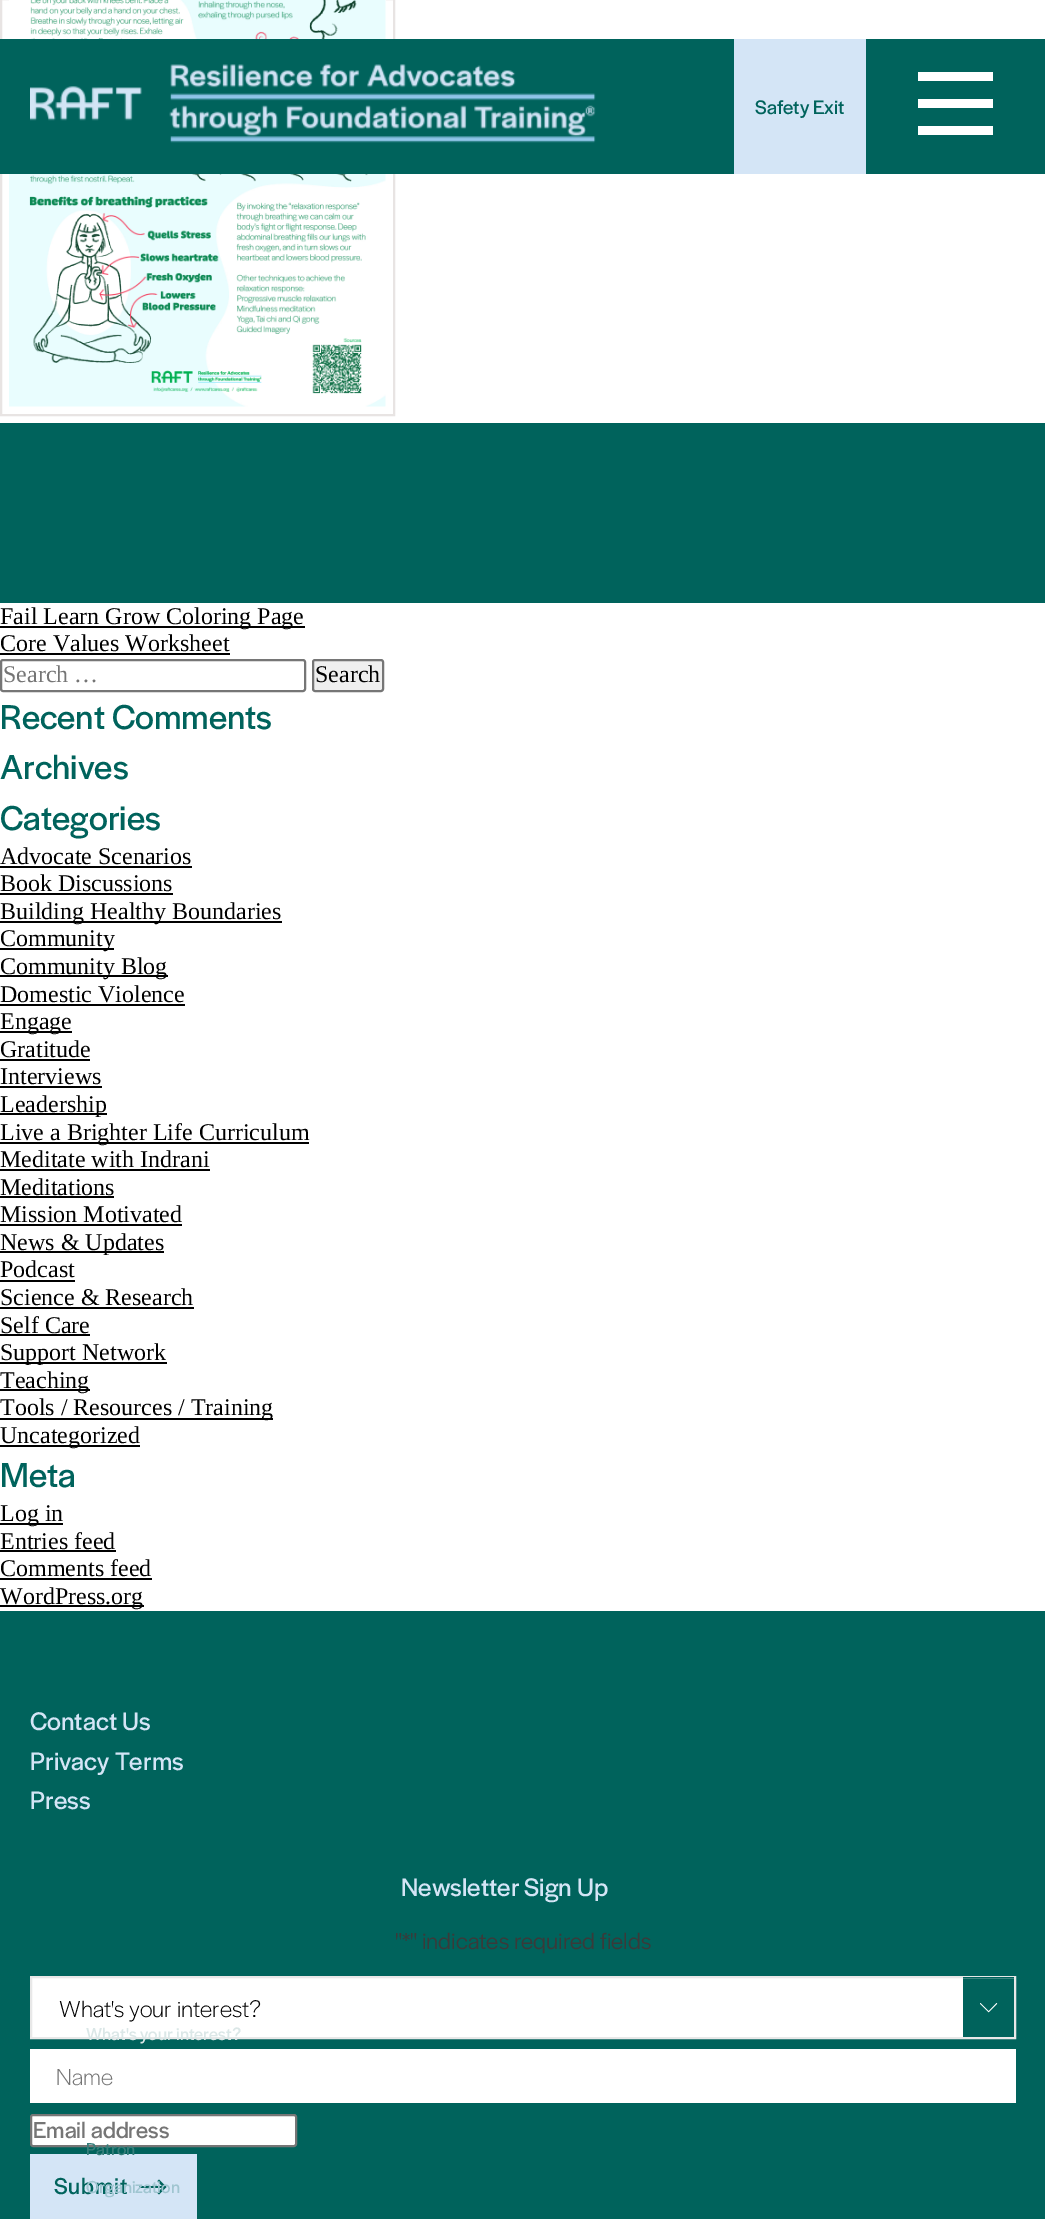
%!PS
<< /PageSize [1045 2219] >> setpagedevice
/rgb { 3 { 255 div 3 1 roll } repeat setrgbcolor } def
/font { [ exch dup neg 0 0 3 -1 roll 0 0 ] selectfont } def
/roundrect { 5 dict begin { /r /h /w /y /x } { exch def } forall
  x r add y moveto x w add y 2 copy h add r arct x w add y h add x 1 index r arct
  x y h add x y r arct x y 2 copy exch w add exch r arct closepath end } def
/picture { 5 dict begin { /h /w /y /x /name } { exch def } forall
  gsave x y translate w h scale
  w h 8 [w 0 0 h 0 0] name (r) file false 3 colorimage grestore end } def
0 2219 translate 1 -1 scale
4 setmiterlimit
255 255 255 rgb
0 0 1045 2219 rectfill
232 228 227 rgb
2 setlinewidth
1 -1 393 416 rectstroke
(img/2.rgb) 9 0 377 407 picture
0 99 92 rgb
0 39 1045 135 rectfill
(img/1.rgb) 30 64 566 79 picture
[
  [734 39 132 135 212 229 246]
  [918 72 75 9 255 255 255]
  [918 99 75 9 255 255 255]
  [918 126 75 9 255 255 255]
  [0 423 1045 180 0 99 92]
  [0 626 305 2 0 0 0]
  [0 653 230 2 0 0 0]
] { aload pop rgb rectfill } forall
118 118 118 rgb
1 660 304 31 2 roundrect stroke
239 239 239 rgb
313 660 70 31 2 roundrect gsave fill grestore
118 118 118 rgb
stroke
[
  [0 866 192 2 0 0 0]
  [0 893 173 2 0 0 0]
  [0 921 282 2 0 0 0]
  [0 948 114 2 0 0 0]
  [0 975 168 2 0 0 0]
  [0 1004 185 2 0 0 0]
  [0 1031 72 2 0 0 0]
  [0 1059 90 2 0 0 0]
  [0 1086 102 2 0 0 0]
  [0 1113 107 2 0 0 0]
  [0 1142 309 2 0 0 0]
  [0 1169 210 2 0 0 0]
  [0 1196 114 2 0 0 0]
  [0 1224 182 2 0 0 0]
  [0 1251 164 2 0 0 0]
  [0 1280 75 2 0 0 0]
  [0 1307 194 2 0 0 0]
  [0 1334 90 2 0 0 0]
  [0 1362 167 2 0 0 0]
  [0 1389 90 2 0 0 0]
  [0 1418 273 2 0 0 0]
  [0 1445 140 2 0 0 0]
  [0 1523 63 2 0 0 0]
  [0 1550 116 2 0 0 0]
  [0 1578 152 2 0 0 0]
  [0 1605 144 2 0 0 0]
  [0 1611 1045 608 0 99 92]
  [32 1978 931 59 255 255 255]
] { aload pop rgb rectfill } forall
232 232 232 rgb
31 1977 984 61 rectstroke
0 99 92 rgb
963 1977 51 1 rectfill
(img/3.rgb) 980 2003 18 10 picture
255 255 255 rgb
30 2049 986 54 rectfill
31 2115 265 31 2 roundrect gsave fill grestore
118 118 118 rgb
stroke
212 229 246 rgb
30 2154 167 65 rectfill
0 99 92 rgb
159 2179.5 moveto 157.5 2181 lineto 162 2186 lineto 139.5 2186 lineto 139.5 2188 lineto 162 2188 lineto 157.5 2193 lineto 159 2194.5 lineto 166.5 2187 lineto closepath fill
/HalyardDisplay-Regular 20.5 font
755 114 moveto (Safety Exit) show
/LiberationSerif-Regular 24 font
0 0 0 rgb
0 624 moveto (Fail Learn Grow Coloring Page) show
0 651 moveto (Core Values Worksheet) show
117 117 117 rgb
3 682 moveto (Search …) show
0 0 0 rgb
315 682 moveto (Search) show
/HalyardDisplay-Regular 36 font
0 99 92 rgb
[
  [(Recent Comments) 0 729]
  [(Archives) 0 779]
  [(Categories) 0 830]
] { aload pop moveto show } forall
/LiberationSerif-Regular 24 font
0 0 0 rgb
[
  [(Advocate Scenarios) 0 864]
  [(Book Discussions) 0 891]
  [(Building Healthy Boundaries) 0 919]
  [(Community) 0 946]
  [(Community Blog) 0 974]
  [(Domestic Violence) 0 1002]
  [(Engage) 0 1029]
  [(Gratitude) 0 1057]
  [(Interviews) 0 1084]
  [(Leadership) 0 1112]
  [(Live a Brighter Life Curriculum) 0 1140]
  [(Meditate with Indrani) 0 1167]
  [(Meditations) 0 1195]
  [(Mission Motivated) 0 1222]
  [(News & Updates) 0 1250]
  [(Podcast) 0 1277]
  [(Science & Research) 0 1305]
  [(Self Care) 0 1333]
  [(Support Network) 0 1360]
  [(Teaching) 0 1388]
  [(Tools / Resources / Training) 0 1415]
  [(Uncategorized) 0 1443]
] { aload pop moveto show } forall
/HalyardDisplay-Regular 36 font
0 99 92 rgb
0 1487 moveto (Meta) show
/LiberationSerif-Regular 24 font
0 0 0 rgb
[
  [(Log in) 0 1521]
  [(Entries feed) 0 1549]
  [(Comments feed) 0 1576]
  [(WordPress.org) 0 1604]
] { aload pop moveto show } forall
/HalyardDisplay-Regular 26.5 font
212 229 246 rgb
[
  [(Contact Us) 30 1730]
  [(Privacy Terms) 30 1770]
  [(Press) 30 1809]
  [(Newsletter Sign Up) 401 1896]
] { aload pop moveto show } forall
/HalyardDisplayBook-Regular 24 font
58 58 58 rgb
395 1949 moveto ("*" indicates required fields) show
/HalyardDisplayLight-Light 24 font
0 0 0 rgb
59 2017 moveto (What's your interest?) show
/HalyardDisplay-Regular 18 font
219 231 231 rgb
86 2040 moveto (What's your interest?) show
55 126 123 rgb
86 2155 moveto (Patron) show
/HalyardDisplayLight-Light 24 font
117 117 117 rgb
56 2085 moveto (Name) show
/HalyardDisplay-Regular 24 font
33 2138 moveto (Email address) show
0 99 92 rgb
54 2194 moveto 0.75 0 (Submit) ashow
/HalyardDisplay-Regular 18 font
159 197 208 rgb
86 2193 moveto (Organization) show
showpage
